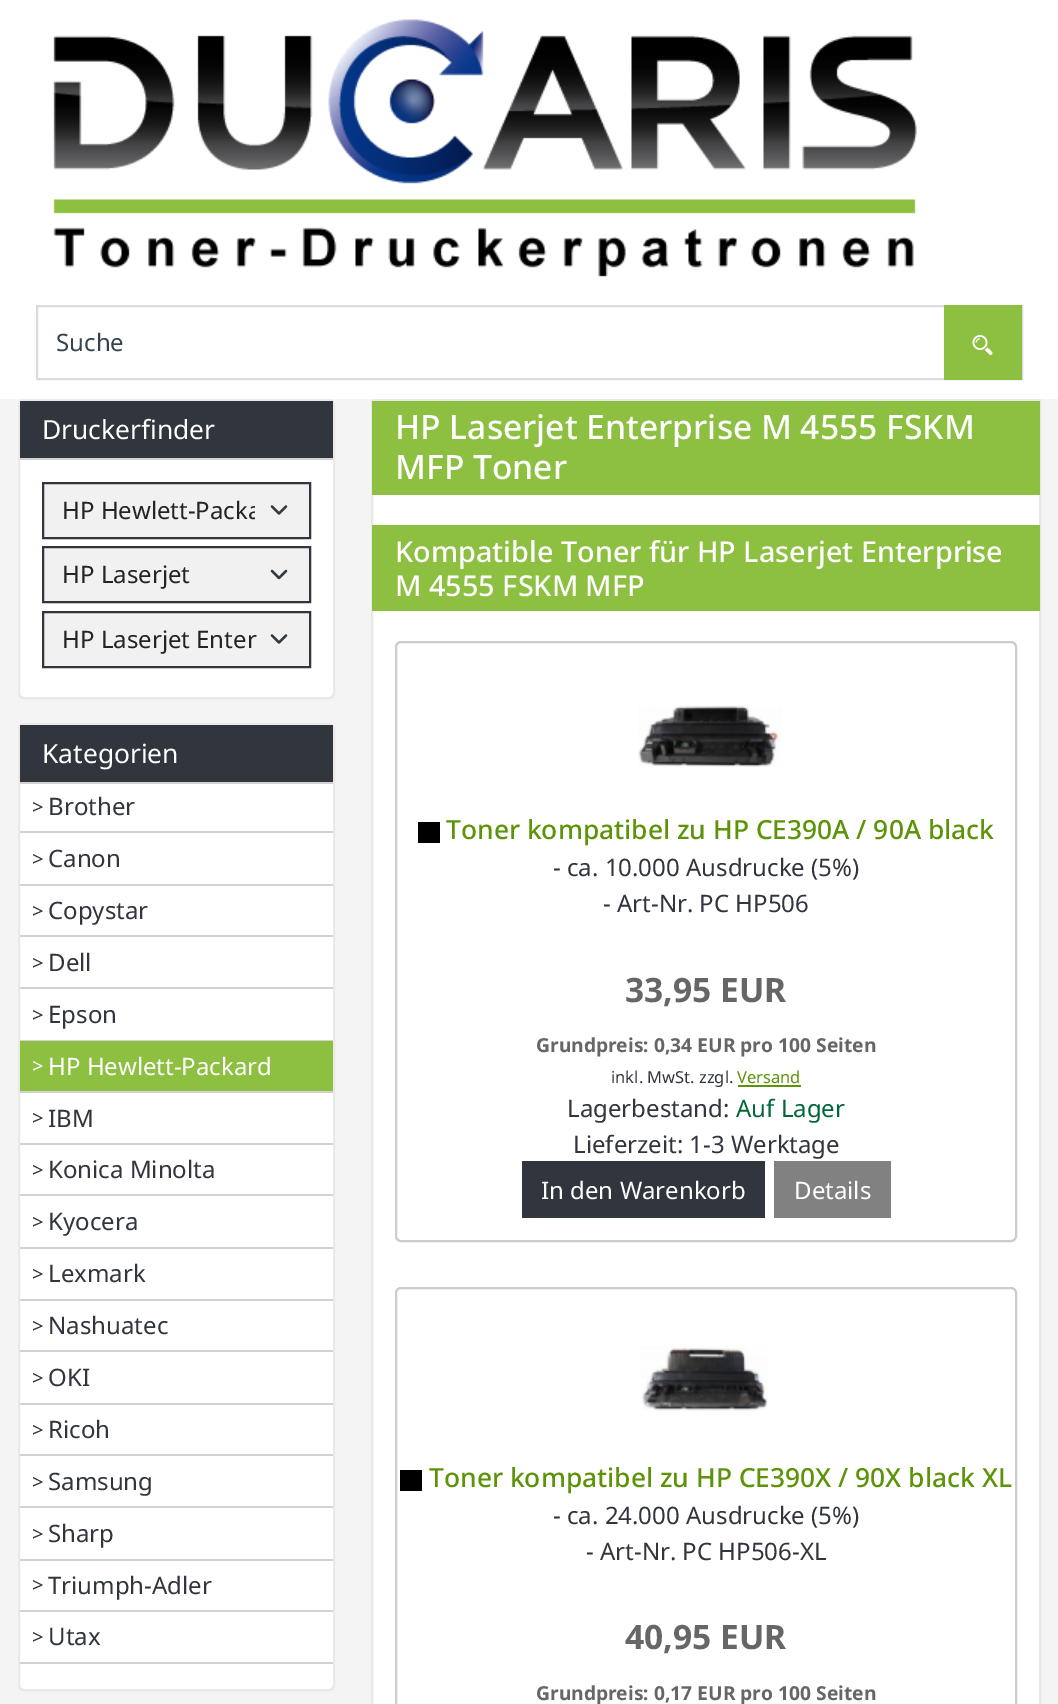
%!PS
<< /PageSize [1058 1704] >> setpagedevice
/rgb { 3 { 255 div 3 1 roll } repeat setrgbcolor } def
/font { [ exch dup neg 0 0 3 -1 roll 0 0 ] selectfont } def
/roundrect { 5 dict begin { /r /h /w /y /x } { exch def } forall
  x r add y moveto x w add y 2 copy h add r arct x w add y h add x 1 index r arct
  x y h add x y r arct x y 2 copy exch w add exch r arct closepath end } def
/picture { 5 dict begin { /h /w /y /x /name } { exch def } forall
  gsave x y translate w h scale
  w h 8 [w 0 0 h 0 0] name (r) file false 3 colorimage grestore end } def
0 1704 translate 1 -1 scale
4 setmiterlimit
244 244 244 rgb
0 0 1058 1704 rectfill
255 255 255 rgb
0 0 1058 399 rectfill
(img/1.rgb) 53 19 864 258 picture
218 218 229 rgb
2 setlinewidth
37 306 985 73 rectstroke
141 191 65 rgb
944 305 78 75 rectfill
(img/2.rgb) 972 335 21 20 picture
255 255 255 rgb
19 400 315 298 5 roundrect gsave fill grestore
234 233 229 rgb
stroke
[
  [20 401 313 57 49 53 61]
  [20 458 313 2 210 210 210]
  [44 484 265 53 241 241 241]
] { aload pop rgb rectfill } forall
52 58 64 rgb
2.2 setlinewidth
1 setlinecap
1 setlinejoin
272 506.5 moveto 279 513.5 lineto 286 506.5 lineto stroke
49 53 61 rgb
2 setlinewidth
0 setlinecap
0 setlinejoin
43 483 267 55 rectstroke
241 241 241 rgb
44 548 265 53 rectfill
52 58 64 rgb
2.2 setlinewidth
1 setlinecap
1 setlinejoin
272 571 moveto 279 578 lineto 286 571 lineto stroke
49 53 61 rgb
2 setlinewidth
0 setlinecap
0 setlinejoin
43 547 267 55 rectstroke
241 241 241 rgb
44 613 265 53 rectfill
52 58 64 rgb
2.2 setlinewidth
1 setlinecap
1 setlinejoin
272 635.5 moveto 279 642.5 lineto 286 635.5 lineto stroke
49 53 61 rgb
2 setlinewidth
0 setlinecap
0 setlinejoin
43 612 267 55 rectstroke
255 255 255 rgb
19 724 315 966 5 roundrect gsave fill grestore
234 233 229 rgb
stroke
[
  [20 725 313 57 49 53 61]
  [20 782 313 2 210 210 210]
  [20 831 313 2 210 210 210]
  [20 884 313 2 210 210 210]
  [20 935 313 2 210 210 210]
  [20 987 313 2 210 210 210]
  [20 1040 313 1 210 210 210]
  [20 1041 313 50 141 191 65]
  [20 1091 313 2 210 210 210]
  [20 1143 313 2 210 210 210]
  [20 1194 313 2 210 210 210]
  [20 1247 313 2 210 210 210]
  [20 1299 313 2 210 210 210]
  [20 1350 313 2 210 210 210]
  [20 1403 313 2 210 210 210]
  [20 1454 313 2 210 210 210]
  [20 1506 313 2 210 210 210]
  [20 1559 313 2 210 210 210]
  [20 1610 313 2 210 210 210]
  [20 1662 313 2 210 210 210]
  [373 495 666 1209 255 255 255]
] { aload pop rgb rectfill } forall
232 232 232 rgb
372 400 668 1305 rectstroke
141 191 65 rgb
372 401 668 94 rectfill
372 525 668 86 rectfill
204 204 204 rgb
396 642 620 599 5 roundrect stroke
(img/3.rgb) 638 705 144 62 picture
[
  [418 822 22 21 0 0 0]
  [738 1085 63 2 92 147 7]
  [522 1161 243 57 49 53 61]
  [774 1161 117 57 129 129 129]
] { aload pop rgb rectfill } forall
204 204 204 rgb
396 1288 620 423 5 roundrect stroke
(img/4.rgb) 641 1346 127 65 picture
0 0 0 rgb
400 1470 22 21 rectfill
/NotoSans-Regular 24 font
55 66 80 rgb
56 351 moveto (Suche) show
/NotoSans-Regular 26.4 font
255 255 255 rgb
42 439 moveto (Druckerfinder) show
gsave
62 492 193 36 rectclip
/NotoSans-Regular 24 font
33 37 41 rgb
62 519 moveto (HP Hewlett-Packa) show
grestore
/NotoSans-Regular 24 font
33 37 41 rgb
62 583 moveto (HP Laserjet) show
62 648 moveto (HP Laserjet Enter) show
/NotoSans-Regular 26.4 font
255 255 255 rgb
42 763 moveto (Kategorien) show
/NotoSans-Regular 20 font
49 53 61 rgb
32 814 moveto (>) show
/NotoSans-Regular 24 font
48 815 moveto (Brother) show
/NotoSans-Regular 20 font
32 866 moveto (>) show
/NotoSans-Regular 24 font
48 867 moveto (Canon) show
/NotoSans-Regular 20 font
32 918 moveto (>) show
/NotoSans-Regular 24 font
48 919 moveto (Copystar) show
/NotoSans-Regular 20 font
32 970 moveto (>) show
/NotoSans-Regular 24 font
48 971 moveto (Dell) show
/NotoSans-Regular 20 font
32 1022 moveto (>) show
/NotoSans-Regular 24 font
48 1023 moveto (Epson) show
/NotoSans-Regular 20 font
255 255 255 rgb
32 1073 moveto (>) show
/NotoSans-Regular 24 font
48 1075 moveto (HP Hewlett-Packard) show
/NotoSans-Regular 20 font
49 53 61 rgb
32 1125 moveto (>) show
/NotoSans-Regular 24 font
48 1127 moveto (IBM) show
/NotoSans-Regular 20 font
32 1177 moveto (>) show
/NotoSans-Regular 24 font
48 1178 moveto (Konica Minolta) show
/NotoSans-Regular 20 font
32 1229 moveto (>) show
/NotoSans-Regular 24 font
48 1230 moveto (Kyocera) show
/NotoSans-Regular 20 font
32 1281 moveto (>) show
/NotoSans-Regular 24 font
48 1282 moveto (Lexmark) show
/NotoSans-Regular 20 font
32 1333 moveto (>) show
/NotoSans-Regular 24 font
48 1334 moveto (Nashuatec) show
/NotoSans-Regular 20 font
32 1385 moveto (>) show
/NotoSans-Regular 24 font
48 1386 moveto (OKI) show
/NotoSans-Regular 20 font
32 1437 moveto (>) show
/NotoSans-Regular 24 font
48 1438 moveto (Ricoh) show
/NotoSans-Regular 20 font
32 1489 moveto (>) show
/NotoSans-Regular 24 font
48 1490 moveto (Samsung) show
/NotoSans-Regular 20 font
32 1541 moveto (>) show
/NotoSans-Regular 24 font
48 1542 moveto (Sharp) show
/NotoSans-Regular 20 font
32 1592 moveto (>) show
/NotoSans-Regular 24 font
48 1594 moveto (Triumph-Adler) show
/NotoSans-Regular 20 font
32 1644 moveto (>) show
/NotoSans-Regular 24 font
48 1645 moveto (Utax) show
/NotoSans-Medium 33.6 font
255 255 255 rgb
395 439 moveto (HP Laserjet Enterprise M 4555 FSKM) show
395 479 moveto (MFP Toner) show
/NotoSans-Medium 28.8 font
395 562 moveto (Kompatible Toner für HP Laserjet Enterprise) show
395 596 moveto (M 4555 FSKM MFP) show
/NotoSans-Medium 26.4 font
92 147 7 rgb
446 839 moveto (Toner kompatibel zu HP CE390A / 90A black) show
/NotoSans-Regular 24 font
49 53 61 rgb
553 876 moveto (- ca. 10.000 Ausdrucke \(5%\)) show
603 912 moveto (- Art-Nr. PC HP506) show
/NotoSans-Bold 33.6 font
102 102 102 rgb
625 1002 moveto (33,95 EUR) show
/NotoSans-Bold 19.25 font
536 1052 moveto (Grundpreis: 0,34 EUR pro 100 Seiten) show
/NotoSans-Regular 16.5 font
49 53 61 rgb
611 1083 moveto (inkl. MwSt. zzgl.) show
92 147 7 rgb
737 1083 moveto (Versand) show
/NotoSans-Regular 24 font
49 53 61 rgb
567 1117 moveto (Lagerbestand:) show
0 104 56 rgb
736 1117 moveto (Auf Lager) show
49 53 61 rgb
573 1153 moveto (Lieferzeit: 1-3 Werktage) show
255 255 255 rgb
541 1199 moveto (In den Warenkorb) show
794 1199 moveto (Details) show
/NotoSans-Medium 26.4 font
92 147 7 rgb
429 1487 moveto (Toner kompatibel zu HP CE390X / 90X black XL) show
/NotoSans-Regular 24 font
49 53 61 rgb
553 1524 moveto (- ca. 24.000 Ausdrucke \(5%\)) show
586 1560 moveto (- Art-Nr. PC HP506-XL) show
/NotoSans-Bold 33.6 font
102 102 102 rgb
625 1649 moveto (40,95 EUR) show
/NotoSans-Bold 19.25 font
536 1700 moveto (Grundpreis: 0,17 EUR pro 100 Seiten) show
showpage
